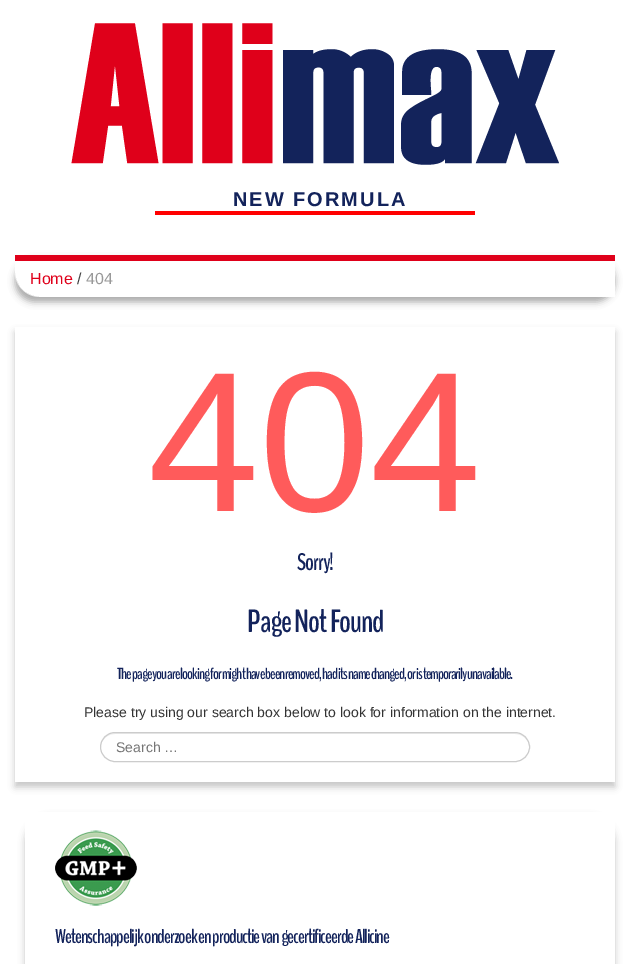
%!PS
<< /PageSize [630 964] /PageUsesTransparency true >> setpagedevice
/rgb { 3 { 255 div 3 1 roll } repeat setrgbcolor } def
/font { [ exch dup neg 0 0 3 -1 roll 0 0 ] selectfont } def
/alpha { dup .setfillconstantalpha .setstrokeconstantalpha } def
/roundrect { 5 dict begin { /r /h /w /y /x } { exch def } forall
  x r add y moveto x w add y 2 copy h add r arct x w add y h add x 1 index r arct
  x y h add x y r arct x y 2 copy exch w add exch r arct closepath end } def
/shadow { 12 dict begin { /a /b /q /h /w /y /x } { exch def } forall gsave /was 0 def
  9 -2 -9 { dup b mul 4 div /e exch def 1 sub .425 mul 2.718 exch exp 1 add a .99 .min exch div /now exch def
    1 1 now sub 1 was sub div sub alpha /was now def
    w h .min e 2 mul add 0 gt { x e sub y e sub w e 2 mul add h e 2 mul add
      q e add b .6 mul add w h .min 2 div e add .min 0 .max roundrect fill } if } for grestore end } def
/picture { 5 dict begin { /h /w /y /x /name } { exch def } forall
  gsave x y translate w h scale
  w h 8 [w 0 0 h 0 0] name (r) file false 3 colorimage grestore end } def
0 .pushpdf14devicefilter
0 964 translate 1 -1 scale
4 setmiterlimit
255 255 255 rgb
0 0 630 964 rectfill
(img/1.rgb) 71 23 488 142 picture
255 0 0 rgb
155 211 320 4 rectfill
gsave
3 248 moveto 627 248 lineto 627 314 lineto 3 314 lineto closepath 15 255 moveto 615 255 lineto 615 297 lineto 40 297 lineto 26 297 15 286 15 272 curveto closepath eoclip newpath
0 0 0 rgb
15 260 600 42 25 3.5 0.33 shadow
grestore
0.79 alpha
255 255 255 rgb
15 255 moveto 615 255 lineto 615 297 lineto 40 297 lineto 26 297 15 286 15 272 curveto closepath fill
1 alpha
223 0 26 rgb
15 255 600 6 rectfill
gsave
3 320 moveto 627 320 lineto 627 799 lineto 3 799 lineto closepath 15 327 moveto 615 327 lineto 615 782 lineto 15 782 lineto closepath eoclip newpath
0 0 0 rgb
15 332 600 455 0 3.5 0.22 shadow
grestore
236 236 236 rgb
115 734 moveto 515 734 lineto 523 734 529 740 529 747 curveto 529 740 523 733 515 733 curveto 115 733 lineto 107 733 101 740 101 747 curveto 101 740 107 734 115 734 curveto closepath fill
204 204 204 rgb
100.5 732.5 429 29 14.5 roundrect stroke
gsave
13 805 moveto 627 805 lineto 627 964 lineto 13 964 lineto closepath 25 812 moveto 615 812 lineto 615 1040 lineto 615 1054 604 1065 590 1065 curveto 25 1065 lineto closepath eoclip newpath
0 0 0 rgb
25 817 590 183 25 3.5 0.22 shadow
grestore
(img/2.rgb) 55 830 82 76 picture
/LiberationSans-Bold 20 font
19 35 91 rgb
233 206 moveto 2 0 (NEW FORMULA) ashow
/LiberationSans-Regular 16 font
223 0 26 rgb
30 284 moveto (Home) show
67 67 67 rgb
77 284 moveto (/) show
153 153 153 rgb
86 284 moveto (404) show
/LiberationSans-Regular 200 font
255 91 91 rgb
148 511 moveto (404) show
/BenchNine-Bold 24 font
19 35 91 rgb
297 570 moveto -1 0 (Sorry!) ashow
/BenchNine-Bold 32 font
247 632 moveto -1 0 (Page Not Found) ashow
/BenchNine-Bold 16 font
117 679 moveto -1 0 (The page you are looking for might have been removed, had its name changed, or is temporarily unavailable.) ashow
/LiberationSans-Regular 14 font
51 51 51 rgb
84 717 moveto (Please try using our search box below to look for information on the internet.) show
117 117 117 rgb
116 752 moveto (Search …) show
/BenchNine-Bold 20 font
19 35 91 rgb
55 943 moveto -1 0 (Wetenschappelijk onderzoek en productie van gecertificeerde Allicine) ashow
.poppdf14devicefilter showpage
